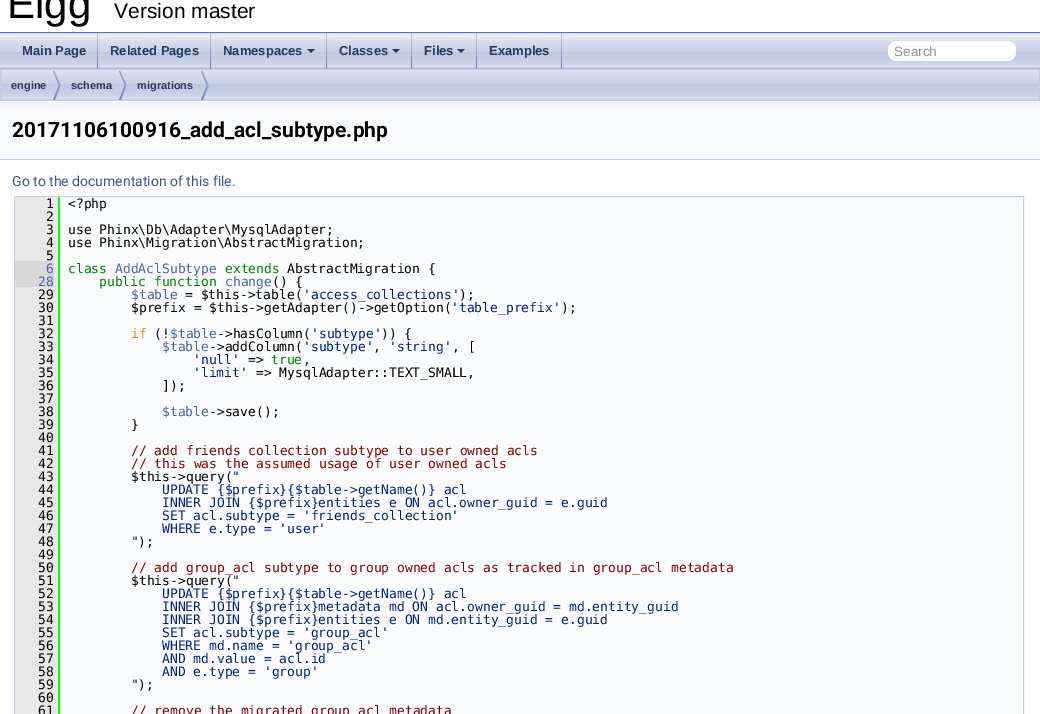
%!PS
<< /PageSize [1040 714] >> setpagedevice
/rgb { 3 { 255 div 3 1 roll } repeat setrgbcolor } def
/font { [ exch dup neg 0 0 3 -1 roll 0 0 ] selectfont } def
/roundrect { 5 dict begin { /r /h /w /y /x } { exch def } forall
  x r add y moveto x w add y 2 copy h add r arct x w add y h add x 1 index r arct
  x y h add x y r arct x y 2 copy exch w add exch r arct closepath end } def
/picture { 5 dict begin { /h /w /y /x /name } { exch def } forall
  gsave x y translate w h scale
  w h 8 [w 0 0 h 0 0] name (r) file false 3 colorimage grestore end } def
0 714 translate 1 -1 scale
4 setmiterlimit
255 255 255 rgb
0 0 1040 714 rectfill
83 115 180 rgb
0 32 1040 1 rectfill
(img/1.rgb) 0 33 1040 36 picture
(img/2.rgb) 97 33 1 36 picture
(img/2.rgb) 210 33 1 36 picture
(img/2.rgb) 326 33 1 36 picture
40 58 93 rgb
307 49 moveto 315 49 lineto 311 53 lineto closepath fill
(img/2.rgb) 411 33 1 36 picture
392 49 moveto 400 49 lineto 396 53 lineto closepath fill
(img/2.rgb) 476 33 1 36 picture
457 49 moveto 465 49 lineto 461 53 lineto closepath fill
(img/2.rgb) 561 33 1 36 picture
255 255 255 rgb
888 41 128 20 9 roundrect fill
(img/3.rgb) 1 70 1038 30 picture
194 205 228 rgb
0.5 69.5 1039 31 rectstroke
(img/4.rgb) 53 71 8 29 picture
(img/4.rgb) 119 71 8 29 picture
(img/4.rgb) 201 71 8 29 picture
249 250 252 rgb
0 109 1040 50 rectfill
(img/5.rgb) 0 101 1040 8 picture
196 207 229 rgb
0 159 1040 1 rectfill
251 252 253 rgb
60 197 963 517 rectfill
196 207 229 rgb
14.5 196.5 1009 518 rectstroke
[
  [15 197 43 64 232 232 232]
  [58 197 2 517 0 255 0]
  [54 261 4 26 232 232 232]
  [15 261 39 26 216 216 216]
  [15 287 43 427 232 232 232]
] { aload pop rgb rectfill } forall
/LiberationSans-Regular 42 font
0 0 0 rgb
7 18 moveto (Elgg) show
/LiberationSans-Regular 21 font
114 18 moveto (Version master) show
/LiberationSans-Bold 13 font
40 58 93 rgb
[
  [(Main Page) 22 55]
  [(Related Pages) 110 55]
  [(Namespaces) 223 55]
  [(Classes) 339 55]
  [(Files) 424 55]
  [(Examples) 489 55]
] { aload pop moveto show } forall
/LiberationSans-Regular 13.5 font
144 144 144 rgb
894 56 moveto (Search) show
/LiberationSans-Bold 11 font
40 58 93 rgb
[
  [(engine) 11 89]
  [(schema) 71 89]
  [(migrations) 137 89]
] { aload pop moveto show } forall
/Roboto-Bold 21 font
0 0 0 rgb
12 137 moveto (20171106100916_add_acl_subtype.php) show
/Roboto-Regular 14 font
61 87 140 rgb
12 186 moveto (Go to the documentation of this file.) show
/DejaVuSansMono-Regular 13 font
0 0 0 rgb
[
  [(1) 46 208]
  [(<?php) 68 208]
  [(2) 46 221]
  [(3) 46 234]
  [(use Phinx\\Db\\Adapter\\MysqlAdapter;) 68 234]
  [(4) 46 247]
  [(use Phinx\\Migration\\AbstractMigration;) 68 247]
  [(5) 46 260]
] { aload pop moveto show } forall
70 101 162 rgb
46 273 moveto (6) show
0 128 0 rgb
68 273 moveto (class) show
70 101 162 rgb
115 273 moveto (AddAclSubtype) show
0 128 0 rgb
225 273 moveto (extends) show
0 0 0 rgb
287 273 moveto (AbstractMigration {) show
70 101 162 rgb
38 286 moveto (28) show
0 128 0 rgb
99 286 moveto (public function) show
70 101 162 rgb
225 286 moveto (change) show
0 0 0 rgb
272 286 moveto (\(\) {) show
38 299 moveto (29) show
70 101 162 rgb
131 299 moveto ($table) show
0 0 0 rgb
185 299 moveto (= $this->table\() show
0 32 128 rgb
303 299 moveto ('access_collections') show
0 0 0 rgb
[
  [(\);) 459 299]
  [(30) 38 312]
  [($prefix = $this->getAdapter\(\)->getOption\() 131 312]
] { aload pop moveto show } forall
0 32 128 rgb
451 312 moveto ('table_prefix') show
0 0 0 rgb
[
  [(\);) 561 312]
  [(31) 38 325]
  [(32) 38 338]
] { aload pop moveto show } forall
224 128 0 rgb
131 338 moveto (if) show
0 0 0 rgb
154 338 moveto (\(!) show
70 101 162 rgb
170 338 moveto ($table) show
0 0 0 rgb
217 338 moveto (->hasColumn\() show
0 32 128 rgb
311 338 moveto ('subtype') show
0 0 0 rgb
381 338 moveto (\)\) {) show
38 351 moveto (33) show
70 101 162 rgb
162 351 moveto ($table) show
0 0 0 rgb
209 351 moveto (->addColumn\() show
0 32 128 rgb
303 351 moveto ('subtype') show
0 0 0 rgb
373 351 moveto (,) show
0 32 128 rgb
389 351 moveto ('string') show
0 0 0 rgb
452 351 moveto (, [) show
38 364 moveto (34) show
0 32 128 rgb
193 364 moveto ('null') show
0 0 0 rgb
248 364 moveto (=>) show
0 128 0 rgb
271 364 moveto (true) show
0 0 0 rgb
303 364 moveto (,) show
38 377 moveto (35) show
0 32 128 rgb
193 377 moveto ('limit') show
0 0 0 rgb
[
  [(=> MysqlAdapter::TEXT_SMALL,) 256 377]
  [(36) 38 390]
  [(]\);) 162 390]
  [(37) 38 403]
  [(38) 38 416]
] { aload pop moveto show } forall
70 101 162 rgb
162 416 moveto ($table) show
0 0 0 rgb
[
  [(->save\(\);) 209 416]
  [(39) 38 429]
  [(}) 131 429]
  [(40) 38 442]
  [(41) 38 455]
] { aload pop moveto show } forall
128 0 0 rgb
131 455 moveto (// add friends collection subtype to user owned acls) show
0 0 0 rgb
38 468 moveto (42) show
128 0 0 rgb
131 468 moveto (// this was the assumed usage of user owned acls) show
0 0 0 rgb
38 481 moveto (43) show
131 481 moveto ($this->query\() show
0 32 128 rgb
232 481 moveto (") show
0 0 0 rgb
38 494 moveto (44) show
0 32 128 rgb
162 494 moveto (UPDATE {$prefix}{$table->getName\(\)} acl) show
0 0 0 rgb
38 507 moveto (45) show
0 32 128 rgb
162 507 moveto (INNER JOIN {$prefix}entities e ON acl.owner_guid = e.guid) show
0 0 0 rgb
38 520 moveto (46) show
0 32 128 rgb
162 520 moveto (SET acl.subtype = 'friends_collection') show
0 0 0 rgb
38 533 moveto (47) show
0 32 128 rgb
162 533 moveto (WHERE e.type = 'user') show
0 0 0 rgb
38 546 moveto (48) show
0 32 128 rgb
131 546 moveto (") show
0 0 0 rgb
[
  [(\);) 138 546]
  [(49) 38 559]
  [(50) 38 572]
] { aload pop moveto show } forall
128 0 0 rgb
131 572 moveto (// add group_acl subtype to group owned acls as tracked in group_acl metadata) show
0 0 0 rgb
38 585 moveto (51) show
131 585 moveto ($this->query\() show
0 32 128 rgb
232 585 moveto (") show
0 0 0 rgb
38 598 moveto (52) show
0 32 128 rgb
162 598 moveto (UPDATE {$prefix}{$table->getName\(\)} acl) show
0 0 0 rgb
38 611 moveto (53) show
0 32 128 rgb
162 611 moveto (INNER JOIN {$prefix}metadata md ON acl.owner_guid = md.entity_guid) show
0 0 0 rgb
38 624 moveto (54) show
0 32 128 rgb
162 624 moveto (INNER JOIN {$prefix}entities e ON md.entity_guid = e.guid) show
0 0 0 rgb
38 637 moveto (55) show
0 32 128 rgb
162 637 moveto (SET acl.subtype = 'group_acl') show
0 0 0 rgb
38 650 moveto (56) show
0 32 128 rgb
162 650 moveto (WHERE md.name = 'group_acl') show
0 0 0 rgb
38 663 moveto (57) show
0 32 128 rgb
162 663 moveto (AND md.value = acl.id) show
0 0 0 rgb
38 676 moveto (58) show
0 32 128 rgb
162 676 moveto (AND e.type = 'group') show
0 0 0 rgb
38 689 moveto (59) show
0 32 128 rgb
131 689 moveto (") show
0 0 0 rgb
[
  [(\);) 138 689]
  [(60) 38 702]
  [(61) 38 715]
] { aload pop moveto show } forall
128 0 0 rgb
131 715 moveto (// remove the migrated group_acl metadata) show
showpage
